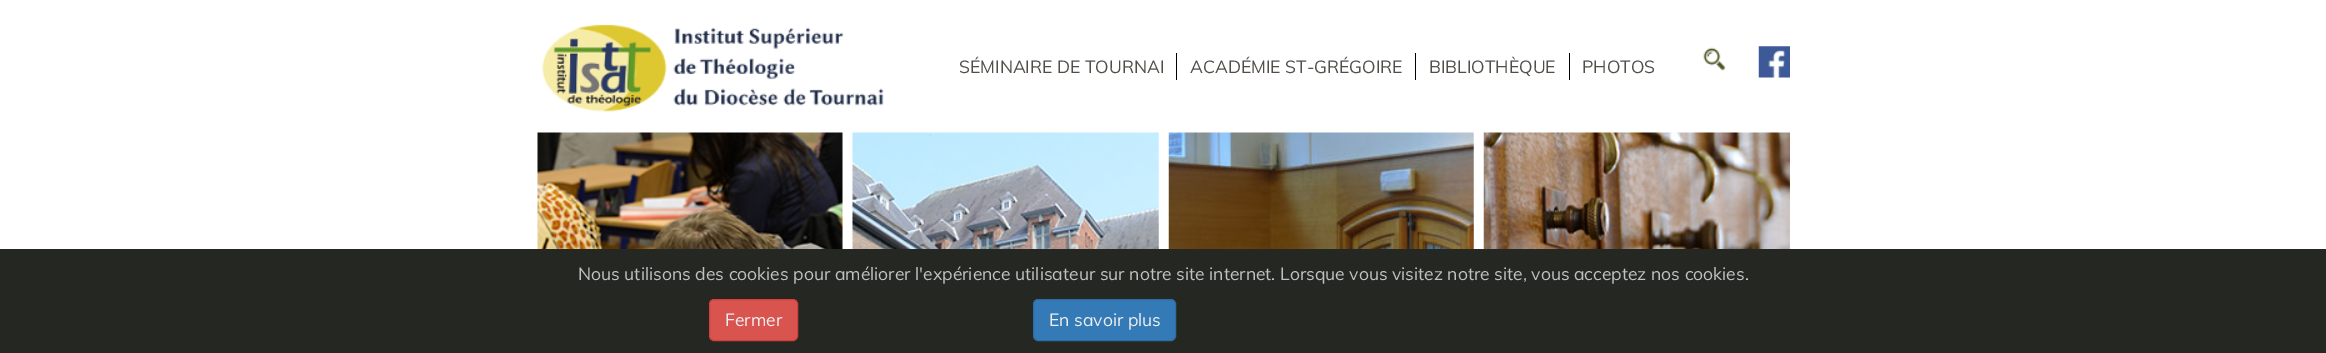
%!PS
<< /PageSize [2326 353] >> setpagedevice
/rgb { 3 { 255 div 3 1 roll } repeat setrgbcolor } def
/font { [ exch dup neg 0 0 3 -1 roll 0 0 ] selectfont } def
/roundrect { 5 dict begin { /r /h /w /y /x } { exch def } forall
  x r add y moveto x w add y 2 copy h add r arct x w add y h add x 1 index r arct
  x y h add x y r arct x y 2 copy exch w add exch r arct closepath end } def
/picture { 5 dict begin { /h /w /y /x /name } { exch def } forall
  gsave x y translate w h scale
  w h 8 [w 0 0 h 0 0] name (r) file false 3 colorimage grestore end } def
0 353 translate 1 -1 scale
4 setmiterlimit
255 255 255 rgb
0 0 2326 353 rectfill
(img/1.rgb) 542 24 342 88 picture
[
  [1176 53 1 27 0 0 0]
  [1415 53 1 27 0 0 0]
  [1569 53 1 27 0 0 0]
] { aload pop rgb rectfill } forall
(img/2.rgb) 1703 47 23 24 picture
(img/3.rgb) 1758 46 32 32 picture
(img/4.rgb) 537 132 306 117 picture
(img/5.rgb) 852 132 307 117 picture
(img/6.rgb) 1168 132 306 117 picture
(img/7.rgb) 1483 132 307 117 picture
37 39 34 rgb
0 249 2326 104 rectfill
217 83 79 rgb
709.5 299.5 88 41 4.5 roundrect gsave fill grestore
212 63 58 rgb
stroke
51 122 183 rgb
1033.5 299.5 142 41 4.5 roundrect gsave fill grestore
46 109 164 rgb
stroke
/Muli-Regular 17.5 font
81 78 73 rgb
[
  [(SÉMINAIRE DE TOURNAI) 959 73]
  [(ACADÉMIE ST-GRÉGOIRE) 1190 73]
  [(BIBLIOTHÈQUE) 1429 73]
  [(PHOTOS) 1582 73]
] { aload pop moveto show } forall
193 193 193 rgb
578 280 moveto (Nous utilisons des cookies pour améliorer l'expérience utilisateur sur notre site internet. Lorsque vous visitez notre site, vous acceptez nos cookies.) show
238 238 238 rgb
725 326 moveto (Fermer) show
1049 326 moveto (En savoir plus) show
showpage
